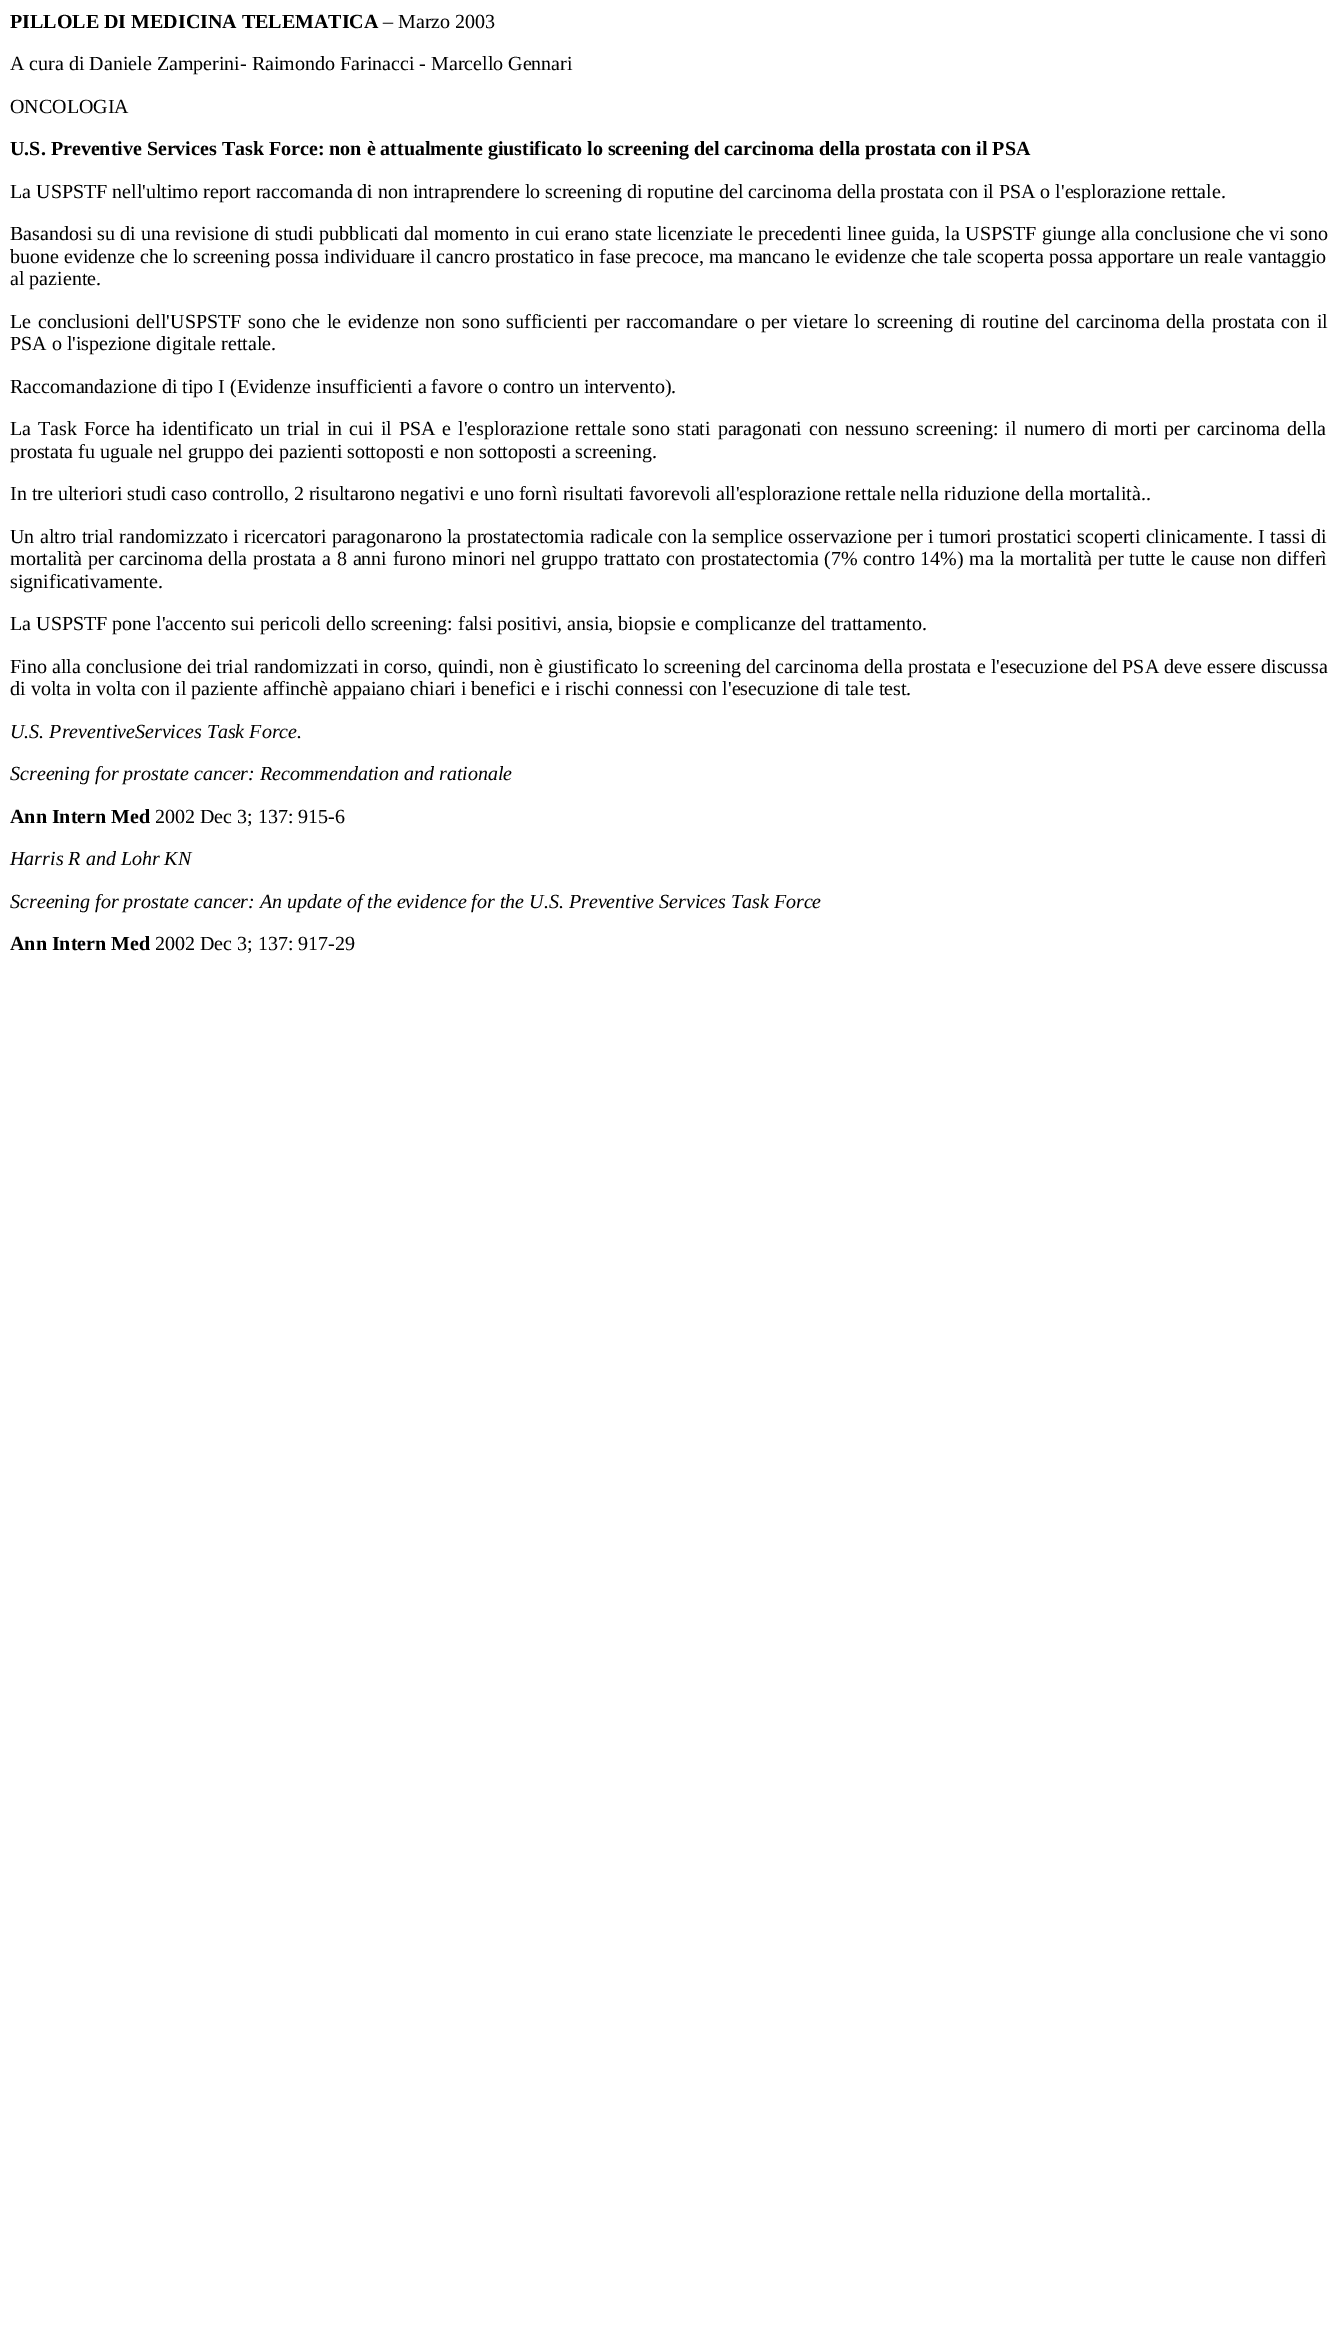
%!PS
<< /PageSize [1337 2347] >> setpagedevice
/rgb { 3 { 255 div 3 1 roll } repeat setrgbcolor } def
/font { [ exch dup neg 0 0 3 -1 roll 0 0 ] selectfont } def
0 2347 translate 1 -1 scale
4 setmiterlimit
255 255 255 rgb
0 0 1337 2347 rectfill
/LiberationSerif-Bold 20 font
0 0 0 rgb
10 28 moveto (PILLOLE DI MEDICINA TELEMATICA) show
/LiberationSerif-Regular 20 font
[
  [(– Marzo 2003) 383 28]
  [(A cura di Daniele Zamperini- Raimondo Farinacci - Marcello Gennari) 10 70]
  [(ONCOLOGIA) 10 113]
] { aload pop moveto show } forall
/LiberationSerif-Bold 20 font
10 155 moveto (U.S. Preventive Services Task Force: non è attualmente giustificato lo screening del carcinoma della prostata con il PSA) show
/LiberationSerif-Regular 20 font
10 198 moveto (La USPSTF nell'ultimo report raccomanda di non intraprendere lo screening di roputine del carcinoma della prostata con il PSA o l'esplorazione rettale.) show
10 240 moveto 0.25 0 32 (Basandosi su di una revisione di studi pubblicati dal momento in cui erano state licenziate le precedenti linee guida, la USPSTF giunge alla conclusione che vi sono) widthshow
10 263 moveto (buone evidenze che lo screening possa individuare il cancro prostatico in fase precoce, ma mancano le evidenze che tale scoperta possa apportare un reale vantaggio) show
10 285 moveto (al paziente.) show
10 328 moveto 1.6 0 32 (Le conclusioni dell'USPSTF sono che le evidenze non sono sufficienti per raccomandare o per vietare lo screening di routine del carcinoma della prostata con il) widthshow
10 350 moveto (PSA o l'ispezione digitale rettale.) show
10 393 moveto (Raccomandazione di tipo I \(Evidenze insufficienti a favore o contro un intervento\).) show
10 435 moveto 2 0 32 (La Task Force ha identificato un trial in cui il PSA e l'esplorazione rettale sono stati paragonati con nessuno screening: il numero di morti per carcinoma della) widthshow
10 458 moveto (prostata fu uguale nel gruppo dei pazienti sottoposti e non sottoposti a screening.) show
10 500 moveto (In tre ulteriori studi caso controllo, 2 risultarono negativi e uno fornì risultati favorevoli all'esplorazione rettale nella riduzione della mortalità..) show
10 543 moveto 0.3 0 32 (Un altro trial randomizzato i ricercatori paragonarono la prostatectomia radicale con la semplice osservazione per i tumori prostatici scoperti clinicamente. I tassi di) widthshow
10 565 moveto 0.8 0 32 (mortalità per carcinoma della prostata a 8 anni furono minori nel gruppo trattato con prostatectomia \(7% contro 14%\) ma la mortalità per tutte le cause non differì) widthshow
10 588 moveto (significativamente.) show
10 630 moveto (La USPSTF pone l'accento sui pericoli dello screening: falsi positivi, ansia, biopsie e complicanze del trattamento.) show
10 673 moveto 0.2 0 32 (Fino alla conclusione dei trial randomizzati in corso, quindi, non è giustificato lo screening del carcinoma della prostata e l'esecuzione del PSA deve essere discussa) widthshow
10 695 moveto (di volta in volta con il paziente affinchè appaiano chiari i benefici e i rischi connessi con l'esecuzione di tale test.) show
/LiberationSerif-Italic 20 font
10 738 moveto (U.S. PreventiveServices Task Force.) show
10 780 moveto (Screening for prostate cancer: Recommendation and rationale) show
/LiberationSerif-Bold 20 font
10 823 moveto (Ann Intern Med) show
/LiberationSerif-Regular 20 font
155 823 moveto (2002 Dec 3; 137: 915-6) show
/LiberationSerif-Italic 20 font
10 865 moveto (Harris R and Lohr KN) show
10 908 moveto (Screening for prostate cancer: An update of the evidence for the U.S. Preventive Services Task Force) show
/LiberationSerif-Bold 20 font
10 950 moveto (Ann Intern Med) show
/LiberationSerif-Regular 20 font
155 950 moveto (2002 Dec 3; 137: 917-29) show
showpage
